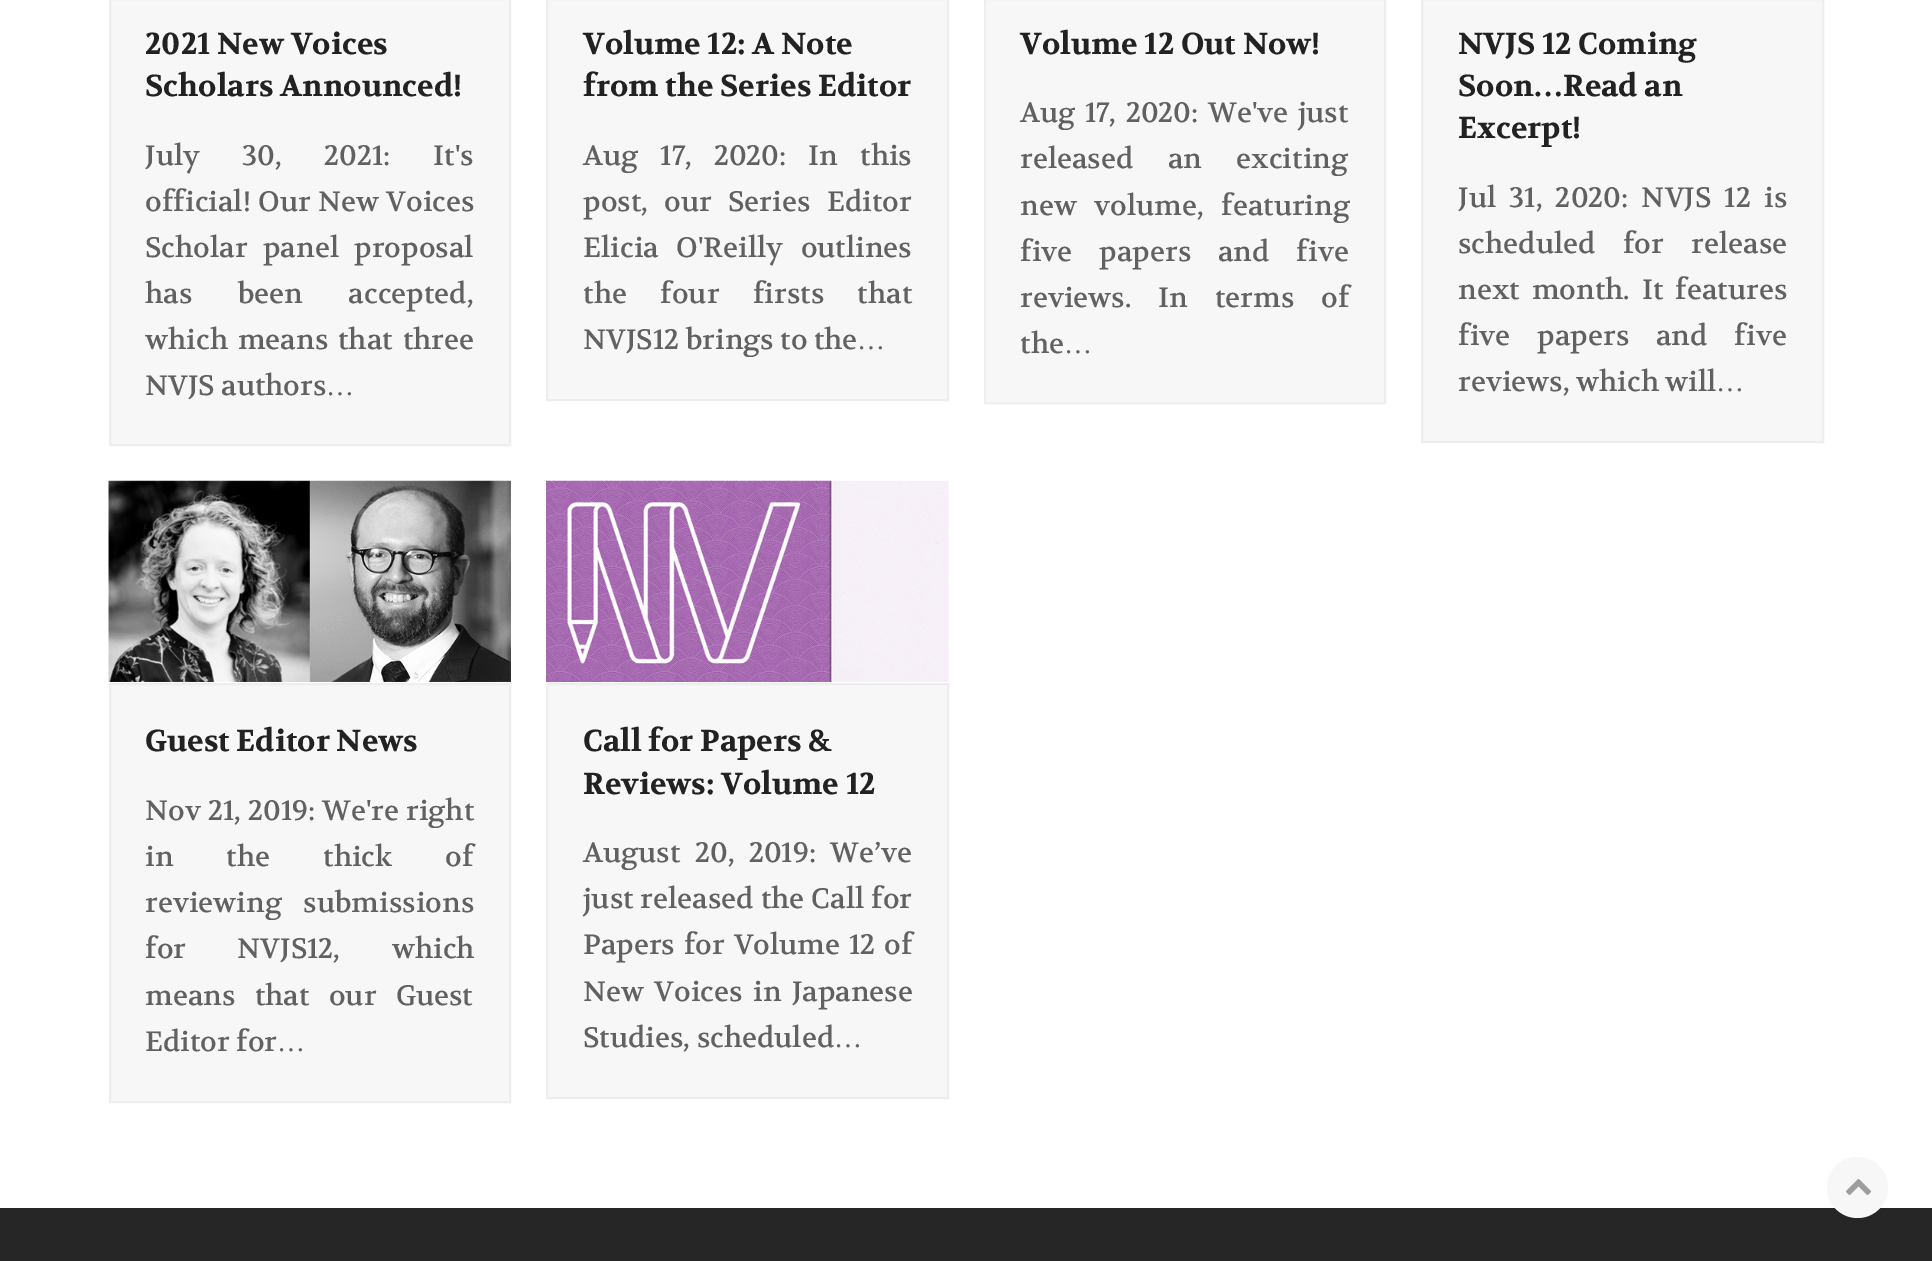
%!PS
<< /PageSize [1932 1261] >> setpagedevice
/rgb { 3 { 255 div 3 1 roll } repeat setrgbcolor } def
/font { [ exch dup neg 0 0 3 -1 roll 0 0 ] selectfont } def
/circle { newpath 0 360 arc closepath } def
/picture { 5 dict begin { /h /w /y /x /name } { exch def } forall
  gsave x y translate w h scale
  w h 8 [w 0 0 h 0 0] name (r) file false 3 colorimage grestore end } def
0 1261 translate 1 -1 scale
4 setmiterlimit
255 255 255 rgb
0 0 1932 1261 rectfill
247 247 247 rgb
110 -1 moveto 510 -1 lineto 510 445 lineto 110 445 lineto closepath gsave fill grestore
238 238 238 rgb
2 setlinewidth
stroke
247 247 247 rgb
547 -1 moveto 948 -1 lineto 948 400 lineto 547 400 lineto closepath gsave fill grestore
238 238 238 rgb
stroke
247 247 247 rgb
985 -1 moveto 1385 -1 lineto 1385 403 lineto 985 403 lineto closepath gsave fill grestore
238 238 238 rgb
stroke
247 247 247 rgb
1422 -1 moveto 1823 -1 lineto 1823 442 lineto 1422 442 lineto closepath gsave fill grestore
238 238 238 rgb
stroke
(img/1.rgb) 108 480 403 202 picture
247 247 247 rgb
110 684 moveto 510 684 lineto 510 1102 lineto 110 1102 lineto closepath gsave fill grestore
238 238 238 rgb
stroke
(img/2.rgb) 546 480 403 202 picture
247 247 247 rgb
547 684 moveto 948 684 lineto 948 1098 lineto 547 1098 lineto closepath gsave fill grestore
238 238 238 rgb
stroke
38 38 38 rgb
0 1208 1932 53 rectfill
247 247 247 rgb
1857.5 1187.5 30.5 circle fill
(img/3.rgb) 1845 1179 27 16 picture
/Volkhov-Bold 30.25 font
34 34 34 rgb
145 54 moveto (2021 New Voices) show
145 96 moveto (Scholars Announced!) show
/Volkhov-Regular 28 font
97 97 97 rgb
145 165 moveto 36 0 32 (July 30, 2021: It's) widthshow
145 211 moveto 1 0 32 (official! Our New Voices) widthshow
145 257 moveto 9 0 32 (Scholar panel proposal) widthshow
145 303 moveto 39 0 32 (has been accepted,) widthshow
145 349 moveto 3.5 0 32 (which means that three) widthshow
145 395 moveto (NVJS authors) show
/LiberationSerif-Regular 28 font
326 395 moveto (…) show
/Volkhov-Bold 30.25 font
34 34 34 rgb
583 54 moveto (Volume 12: A Note) show
583 96 moveto (from the Series Editor) show
/Volkhov-Regular 28 font
97 97 97 rgb
583 165 moveto 15.5 0 32 (Aug 17, 2020: In this) widthshow
583 211 moveto 10 0 32 (post, our Series Editor) widthshow
583 257 moveto 11 0 32 (Elicia O'Reilly outlines) widthshow
583 303 moveto 27 0 32 (the four firsts that) widthshow
583 349 moveto (NVJS12 brings to the) show
/LiberationSerif-Regular 28 font
857 349 moveto (…) show
/Volkhov-Bold 30.25 font
34 34 34 rgb
1020 54 moveto (Volume 12 Out Now!) show
/Volkhov-Regular 28 font
97 97 97 rgb
1020 122 moveto 3 0 32 (Aug 17, 2020: We've just) widthshow
1020 168 moveto 28 0 32 (released an exciting) widthshow
1020 215 moveto 11 0 32 (new volume, featuring) widthshow
1020 261 moveto 20.5 0 32 (five papers and five) widthshow
1020 307 moveto 20.5 0 32 (reviews. In terms of) widthshow
1020 353 moveto (the) show
/LiberationSerif-Regular 28 font
1064 353 moveto (…) show
/Volkhov-Bold 30.25 font
34 34 34 rgb
1458 54 moveto (NVJS 12 Coming) show
1458 96 moveto (Soon) show
/LiberationSerif-Bold 30.25 font
1533 96 moveto (…) show
/Volkhov-Bold 30.25 font
1563 96 moveto (Read an) show
1458 138 moveto (Excerpt!) show
/Volkhov-Regular 28 font
97 97 97 rgb
1458 207 moveto 6.75 0 32 (Jul 31, 2020: NVJS 12 is) widthshow
1458 253 moveto 21 0 32 (scheduled for release) widthshow
1458 299 moveto 5.5 0 32 (next month. It features) widthshow
1458 345 moveto 20.5 0 32 (five papers and five) widthshow
1458 391 moveto (reviews, which will) show
/LiberationSerif-Regular 28 font
1716 391 moveto (…) show
/Volkhov-Bold 30.25 font
34 34 34 rgb
145 751 moveto (Guest Editor News) show
/Volkhov-Regular 28 font
97 97 97 rgb
145 820 moveto 0.5 0 32 (Nov 21, 2019: We're right) widthshow
145 866 moveto 46.5 0 32 (in the thick of) widthshow
145 912 moveto 15 0 32 (reviewing submissions) widthshow
145 958 moveto 45 0 32 (for NVJS12, which) widthshow
145 1005 moveto 13 0 32 (means that our Guest) widthshow
145 1051 moveto (Editor for) show
/LiberationSerif-Regular 28 font
277 1051 moveto (…) show
/Volkhov-Bold 30.25 font
34 34 34 rgb
583 751 moveto (Call for Papers &) show
583 794 moveto (Reviews: Volume 12) show
/Volkhov-Regular 28 font
97 97 97 rgb
583 862 moveto 8 0 32 (August 20, 2019: We’ve) widthshow
583 908 moveto 0.5 0 32 (just released the Call for) widthshow
583 954 moveto 2.5 0 32 (Papers for Volume 12 of) widthshow
583 1001 moveto 4 0 32 (New Voices in Japanese) widthshow
583 1047 moveto (Studies, scheduled) show
/LiberationSerif-Regular 28 font
834 1047 moveto (…) show
showpage
